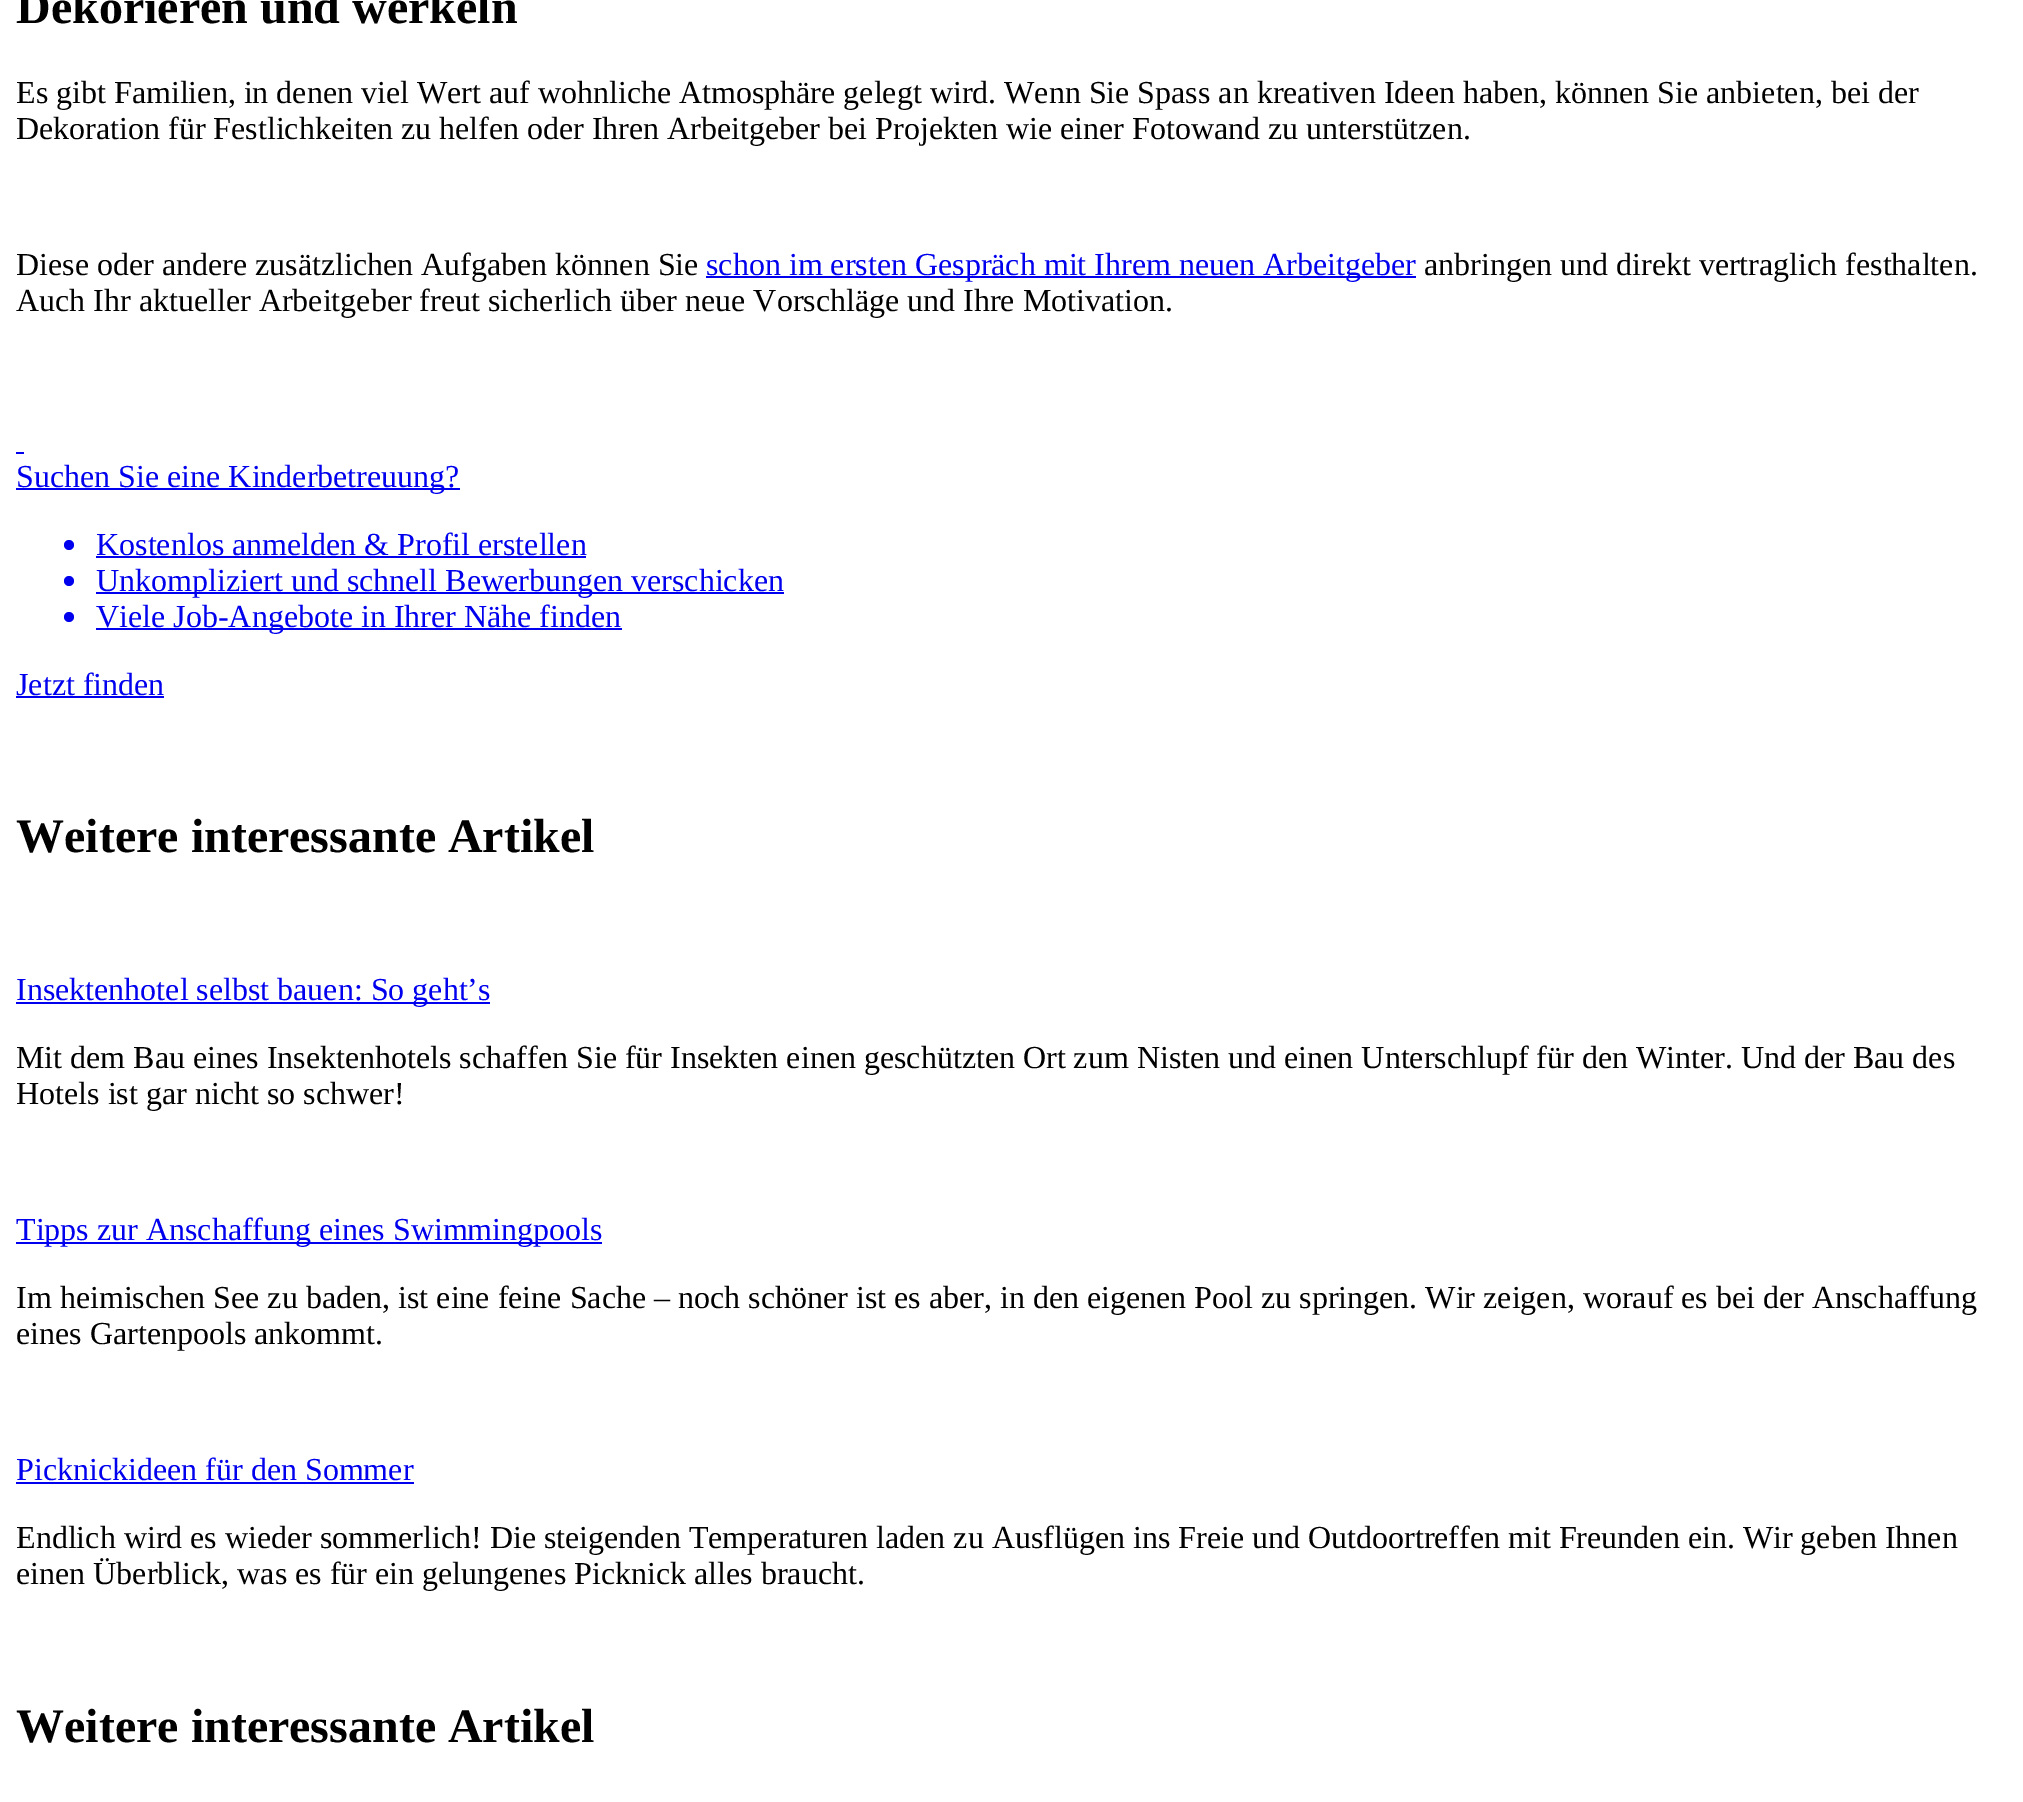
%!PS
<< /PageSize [2023 1802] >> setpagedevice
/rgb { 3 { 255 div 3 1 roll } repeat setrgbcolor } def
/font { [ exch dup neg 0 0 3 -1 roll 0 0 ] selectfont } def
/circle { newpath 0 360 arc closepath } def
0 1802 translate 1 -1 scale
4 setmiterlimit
255 255 255 rgb
0 0 2023 1802 rectfill
[
  [706 276 710 2 0 0 238]
  [16 452 8 2 0 0 238]
  [16 488 444 2 0 0 238]
] { aload pop rgb rectfill } forall
69 545 5 circle fill
96 556 490 2 rectfill
69 581 5 circle fill
96 592 688 2 rectfill
69 617 5 circle fill
[
  [96 628 526 2 0 0 238]
  [16 696 148 2 0 0 238]
  [16 1002 474 2 0 0 238]
  [16 1242 586 2 0 0 238]
  [16 1482 398 2 0 0 238]
] { aload pop rgb rectfill } forall
/LiberationSerif-Bold 48 font
0 0 0 rgb
16 23 moveto (Dekorieren und werkeln) show
/LiberationSerif-Regular 32 font
[
  [(Es gibt Familien, in denen viel Wert auf wohnliche Atmosphäre gelegt wird. Wenn Sie Spass an kreativen Ideen haben, können Sie anbieten, bei der) 16 103]
  [(Dekoration für Festlichkeiten zu helfen oder Ihren Arbeitgeber bei Projekten wie einer Fotowand zu unterstützen.) 16 139]
  [(Diese oder andere zusätzlichen Aufgaben können Sie) 16 275]
] { aload pop moveto show } forall
0 0 238 rgb
706 275 moveto (schon im ersten Gespräch mit Ihrem neuen Arbeitgeber) show
0 0 0 rgb
1424 275 moveto (anbringen und direkt vertraglich festhalten.) show
16 311 moveto (Auch Ihr aktueller Arbeitgeber freut sicherlich über neue Vorschläge und Ihre Motivation.) show
0 0 238 rgb
[
  [(Suchen Sie eine Kinderbetreuung?) 16 487]
  [(Kostenlos anmelden & Profil erstellen) 96 555]
  [(Unkompliziert und schnell Bewerbungen verschicken) 96 591]
  [(Viele Job-Angebote in Ihrer Nähe finden) 96 627]
  [(Jetzt finden) 16 695]
] { aload pop moveto show } forall
/LiberationSerif-Bold 48 font
0 0 0 rgb
16 852 moveto (Weitere interessante Artikel) show
/LiberationSerif-Regular 32 font
0 0 238 rgb
16 1000 moveto (Insektenhotel selbst bauen: So geht’s) show
0 0 0 rgb
16 1068 moveto (Mit dem Bau eines Insektenhotels schaffen Sie für Insekten einen geschützten Ort zum Nisten und einen Unterschlupf für den Winter. Und der Bau des) show
16 1104 moveto (Hotels ist gar nicht so schwer!) show
0 0 238 rgb
16 1240 moveto (Tipps zur Anschaffung eines Swimmingpools) show
0 0 0 rgb
16 1308 moveto (Im heimischen See zu baden, ist eine feine Sache – noch schöner ist es aber, in den eigenen Pool zu springen. Wir zeigen, worauf es bei der Anschaffung) show
16 1344 moveto (eines Gartenpools ankommt.) show
0 0 238 rgb
16 1480 moveto (Picknickideen für den Sommer) show
0 0 0 rgb
16 1548 moveto (Endlich wird es wieder sommerlich! Die steigenden Temperaturen laden zu Ausflügen ins Freie und Outdoortreffen mit Freunden ein. Wir geben Ihnen) show
16 1584 moveto (einen Überblick, was es für ein gelungenes Picknick alles braucht.) show
/LiberationSerif-Bold 48 font
16 1742 moveto (Weitere interessante Artikel) show
showpage
